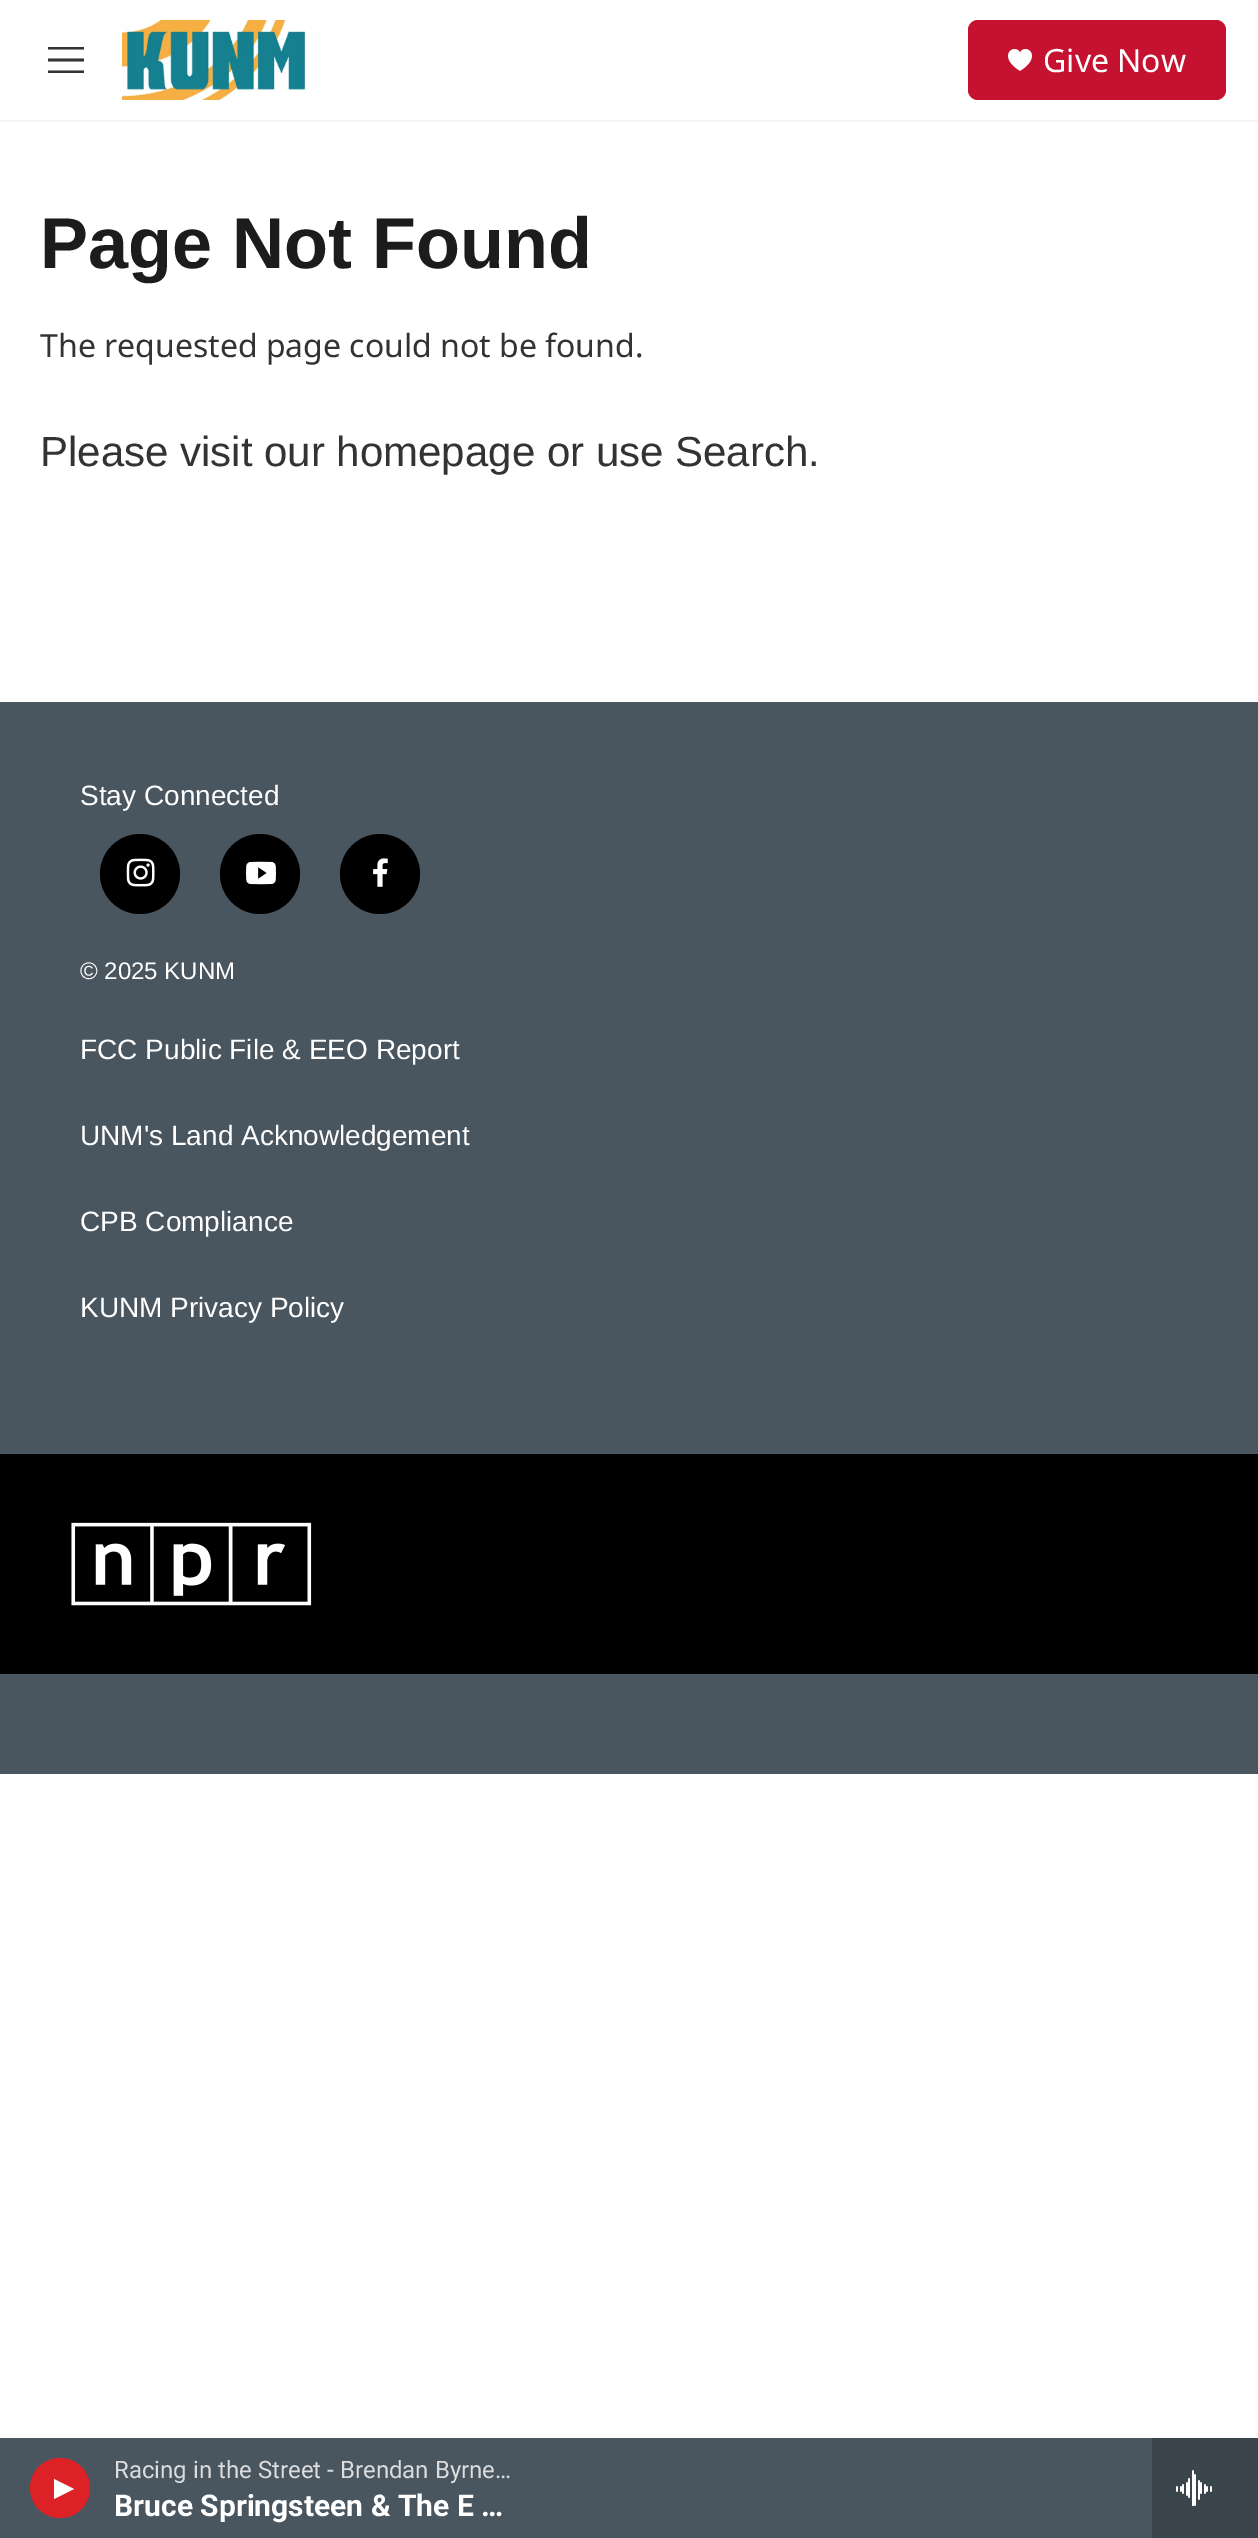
%!PS
<< /PageSize [1258 2538] >> setpagedevice
/rgb { 3 { 255 div 3 1 roll } repeat setrgbcolor } def
/font { [ exch dup neg 0 0 3 -1 roll 0 0 ] selectfont } def
/circle { newpath 0 360 arc closepath } def
/roundrect { 5 dict begin { /r /h /w /y /x } { exch def } forall
  x r add y moveto x w add y 2 copy h add r arct x w add y h add x 1 index r arct
  x y h add x y r arct x y 2 copy exch w add exch r arct closepath end } def
/picture { 5 dict begin { /h /w /y /x /name } { exch def } forall
  gsave x y translate w h scale
  w h 8 [w 0 0 h 0 0] name (r) file false 3 colorimage grestore end } def
0 2538 translate 1 -1 scale
4 setmiterlimit
255 255 255 rgb
0 0 1258 2538 rectfill
245 245 245 rgb
0 120 1258 2 rectfill
51 51 51 rgb
48 61.5 moveto 48 58.5 lineto 84 58.5 lineto 84 61.5 lineto closepath 48 49.5 moveto 48 47 lineto 84 47 lineto 84 49.5 lineto closepath 48 73 moveto 48 70.5 lineto 84 70.5 lineto 84 73 lineto closepath eofill
(img/1.rgb) 122 20 184 80 picture
196 18 48 rgb
968 20 258 80 10 roundrect fill
(img/2.rgb) 1008 49 24 22 picture
74 86 95 rgb
0 2438 1152 100 rectfill
220 33 39 rgb
60 2488 30 circle fill
255 255 255 rgb
54 2479 moveto 74 2489 lineto 54 2499 lineto closepath fill
59 69 76 rgb
1152 2438 106 100 rectfill
(img/3.rgb) 1176 2470 36 36 picture
74 86 95 rgb
0 702 1258 1072 rectfill
0 0 0 rgb
140 874 40 circle fill
(img/4.rgb) 126 858 29 29 picture
260 874 40 circle fill
(img/5.rgb) 246 861 30 24 picture
380 874 40 circle fill
(img/6.rgb) 373 858 15 29 picture
0 1454 1258 220 rectfill
(img/7.rgb) 71 1522 241 84 picture
/NotoSans-Regular 32 font
255 255 255 rgb
1043 72 moveto (Give Now) show
/Roboto-Regular 24 font
219 221 223 rgb
114 2478 moveto (Racing in the Street - Brendan Byrne…) show
/Roboto-Bold 30 font
255 255 255 rgb
114 2516 moveto (Bruce Springsteen & The E …) show
/LiberationSans-Bold 72 font
28 28 28 rgb
40 268 moveto (Page Not Found) show
/NotoSans-Regular 32 font
51 51 51 rgb
40 357 moveto (The requested page could not be found.) show
/LiberationSans-Regular 42 font
40 466 moveto (Please visit our homepage or use Search.) show
/LiberationSans-Regular 28 font
255 255 255 rgb
80 805 moveto (Stay Connected) show
/LiberationSans-Regular 24 font
80 979 moveto (© 2025 KUNM) show
/LiberationSans-Regular 28 font
[
  [(FCC Public File & EEO Report) 80 1059]
  [(UNM's Land Acknowledgement) 80 1145]
  [(CPB Compliance) 80 1231]
  [(KUNM Privacy Policy) 80 1317]
] { aload pop moveto show } forall
showpage
